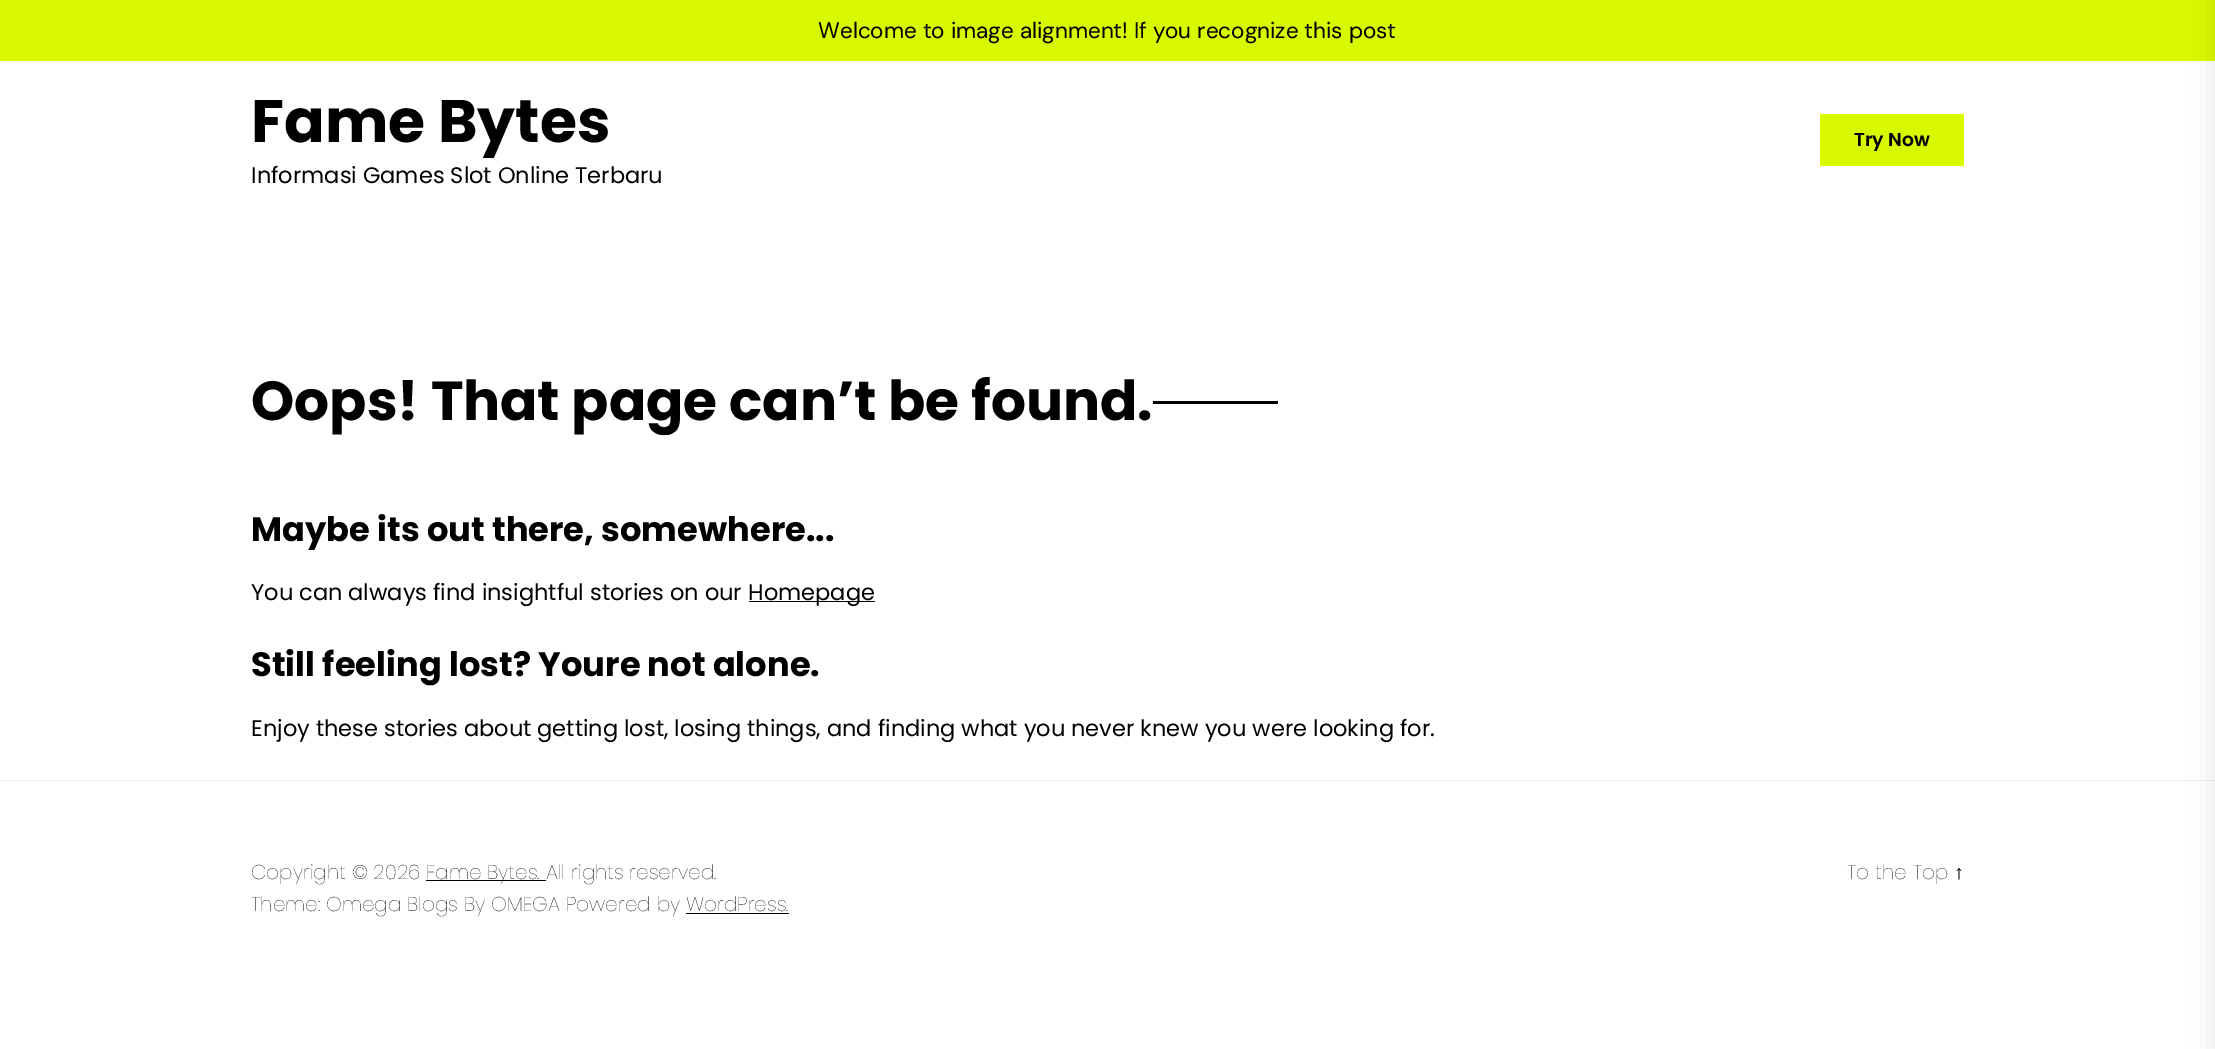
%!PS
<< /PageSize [2215 1049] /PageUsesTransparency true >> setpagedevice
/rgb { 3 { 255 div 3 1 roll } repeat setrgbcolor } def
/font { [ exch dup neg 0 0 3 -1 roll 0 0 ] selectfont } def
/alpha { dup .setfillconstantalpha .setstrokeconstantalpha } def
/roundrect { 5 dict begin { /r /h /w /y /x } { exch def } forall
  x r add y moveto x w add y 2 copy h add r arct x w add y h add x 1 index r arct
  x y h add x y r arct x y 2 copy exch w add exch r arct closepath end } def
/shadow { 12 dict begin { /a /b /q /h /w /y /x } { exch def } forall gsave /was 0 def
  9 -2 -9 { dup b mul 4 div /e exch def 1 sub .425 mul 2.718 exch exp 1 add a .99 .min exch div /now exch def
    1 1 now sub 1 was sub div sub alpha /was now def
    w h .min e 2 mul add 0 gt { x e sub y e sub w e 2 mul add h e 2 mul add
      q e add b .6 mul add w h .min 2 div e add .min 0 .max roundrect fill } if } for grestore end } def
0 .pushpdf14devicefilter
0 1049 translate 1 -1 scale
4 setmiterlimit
255 255 255 rgb
0 0 2215 1049 rectfill
[
  [0 0 2215 61 217 249 0]
  [1820 114 144 52 217 249 0]
  [1153 401 125 3 0 0 0]
  [749 601 126 1 0 0 0]
  [0 780 2215 1 237 237 237]
] { aload pop rgb rectfill } forall
0 0 0 rgb
2215 0 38 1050 0 12.5 0.1 shadow
426 880 120 1 rectfill
686 913 103 1 rectfill
/DMSans-Regular 22.5 font
818 38 moveto (Welcome to image alignment! If you recognize this post) show
/Poppins-Bold 60 font
251 142 moveto (Fame Bytes) show
/Poppins-Regular 22.5 font
251 183 moveto (Informasi Games Slot Online Terbaru) show
/Poppins-SemiBold 18.75 font
1854 146 moveto (Try Now) show
/Poppins-Bold 55 font
251 420 moveto (Oops! That page can’t be found.) show
/Poppins-Bold 33.75 font
251 541 moveto (Maybe its out there, somewhere...) show
/Poppins-Regular 22.5 font
251 600 moveto (You can always find insightful stories on our) show
748 600 moveto (Homepage) show
/Poppins-Bold 33.75 font
251 676 moveto (Still feeling lost? Youre not alone.) show
/Poppins-Regular 22.5 font
251 736 moveto (Enjoy these stories about getting lost, losing things, and finding what you never knew you were looking for.) show
/Poppins-Thin 20 font
[
  [(Copyright © 2026) 251 879]
  [(Fame Bytes. All rights reserved.) 426 879]
  [(Theme: Omega Blogs By OMEGA Powered by WordPress.) 251 911]
  [(To the Top) 1847 879]
] { aload pop moveto show } forall
/LiberationSans-Regular 20 font
1954 879 moveto (↑) show
.poppdf14devicefilter showpage
